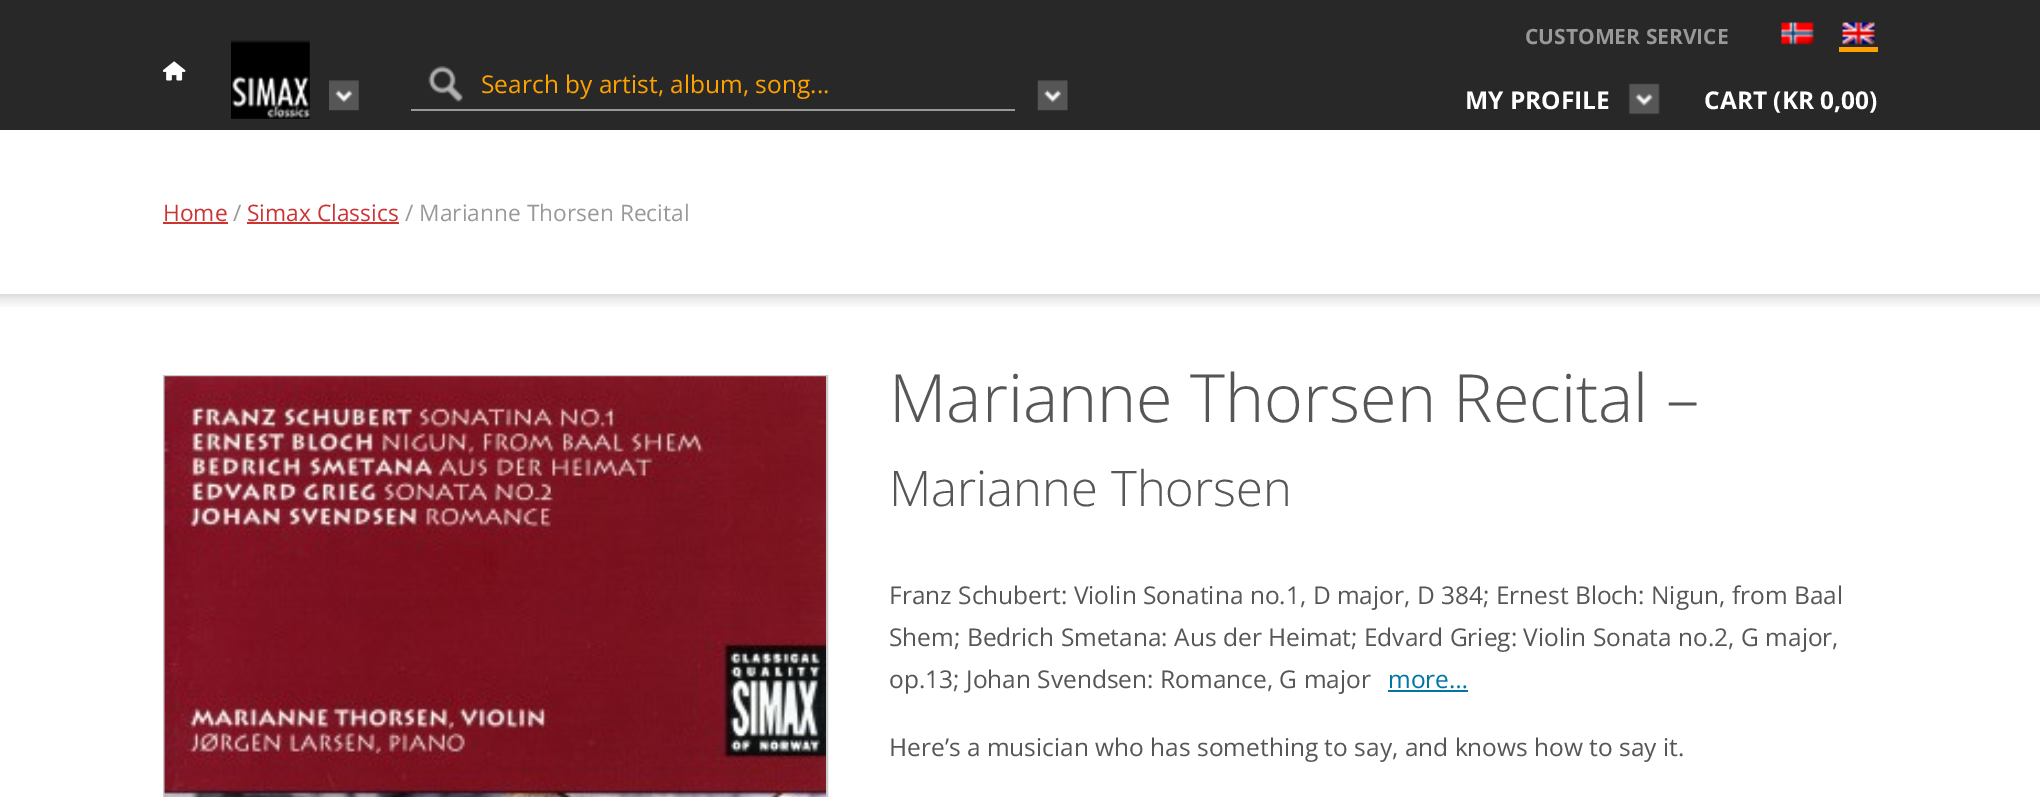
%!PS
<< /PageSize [2040 797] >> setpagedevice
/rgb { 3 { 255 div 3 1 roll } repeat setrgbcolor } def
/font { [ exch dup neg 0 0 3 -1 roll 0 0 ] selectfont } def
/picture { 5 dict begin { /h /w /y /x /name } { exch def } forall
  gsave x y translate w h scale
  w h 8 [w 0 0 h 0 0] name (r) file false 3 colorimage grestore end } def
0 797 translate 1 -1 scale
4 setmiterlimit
255 255 255 rgb
0 0 2040 797 rectfill
40 40 40 rgb
0 0 2040 130 rectfill
(img/1.rgb) 1781 22 33 23 picture
(img/2.rgb) 1842 22 33 23 picture
255 162 0 rgb
1839 47 39 5 rectfill
(img/3.rgb) 163 61 23 20 picture
(img/4.rgb) 231 40 79 79 picture
(img/5.rgb) 329 80 30 31 picture
(img/6.rgb) 428 66 35 36 picture
153 153 153 rgb
411 109 604 2 rectfill
(img/7.rgb) 1037 80 31 31 picture
(img/8.rgb) 1628 83 32 32 picture
204 51 51 rgb
163 222 65 2 rectfill
247 222 152 2 rectfill
(img/9.rgb) 0 294 2040 13 picture
202 202 202 rgb
2 setlinewidth
164 376 663 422 rectstroke
(img/10.rgb) 164 376 662 421 picture
0 118 163 rgb
1388 690 80 2 rectfill
/OpenSans-Bold 21 font
153 153 153 rgb
1525 44 moveto (CUSTOMER SERVICE) show
/OpenSans-Regular 24.5 font
255 162 0 rgb
481 93 moveto (Search by artist, album, song...) show
/OpenSans-Bold 24.5 font
255 255 255 rgb
1465 109 moveto (MY PROFILE) show
1704 109 moveto (CART \(KR 0,00\)) show
/OpenSans-Regular 22.75 font
204 51 51 rgb
163 221 moveto (Home) show
153 153 153 rgb
233 221 moveto (/) show
204 51 51 rgb
247 221 moveto (Simax Classics) show
153 153 153 rgb
405 221 moveto (/ Marianne Thorsen Recital) show
/OpenSans-Light 66.5 font
86 86 86 rgb
889 422 moveto (Marianne Thorsen Recital –) show
/OpenSans-Light 49 font
889 506 moveto (Marianne Thorsen) show
/OpenSans-Regular 24.5 font
[
  [(Franz Schubert: Violin Sonatina no.1, D major, D 384; Ernest Bloch: Nigun, from Baal) 889 604]
  [(Shem; Bedrich Smetana: Aus der Heimat; Edvard Grieg: Violin Sonata no.2, G major,) 889 646]
  [(op.13; Johan Svendsen: Romance, G major) 889 688]
] { aload pop moveto show } forall
0 118 163 rgb
1388 688 moveto (more…) show
86 86 86 rgb
889 756 moveto (Here’s a musician who has something to say, and knows how to say it.) show
showpage
